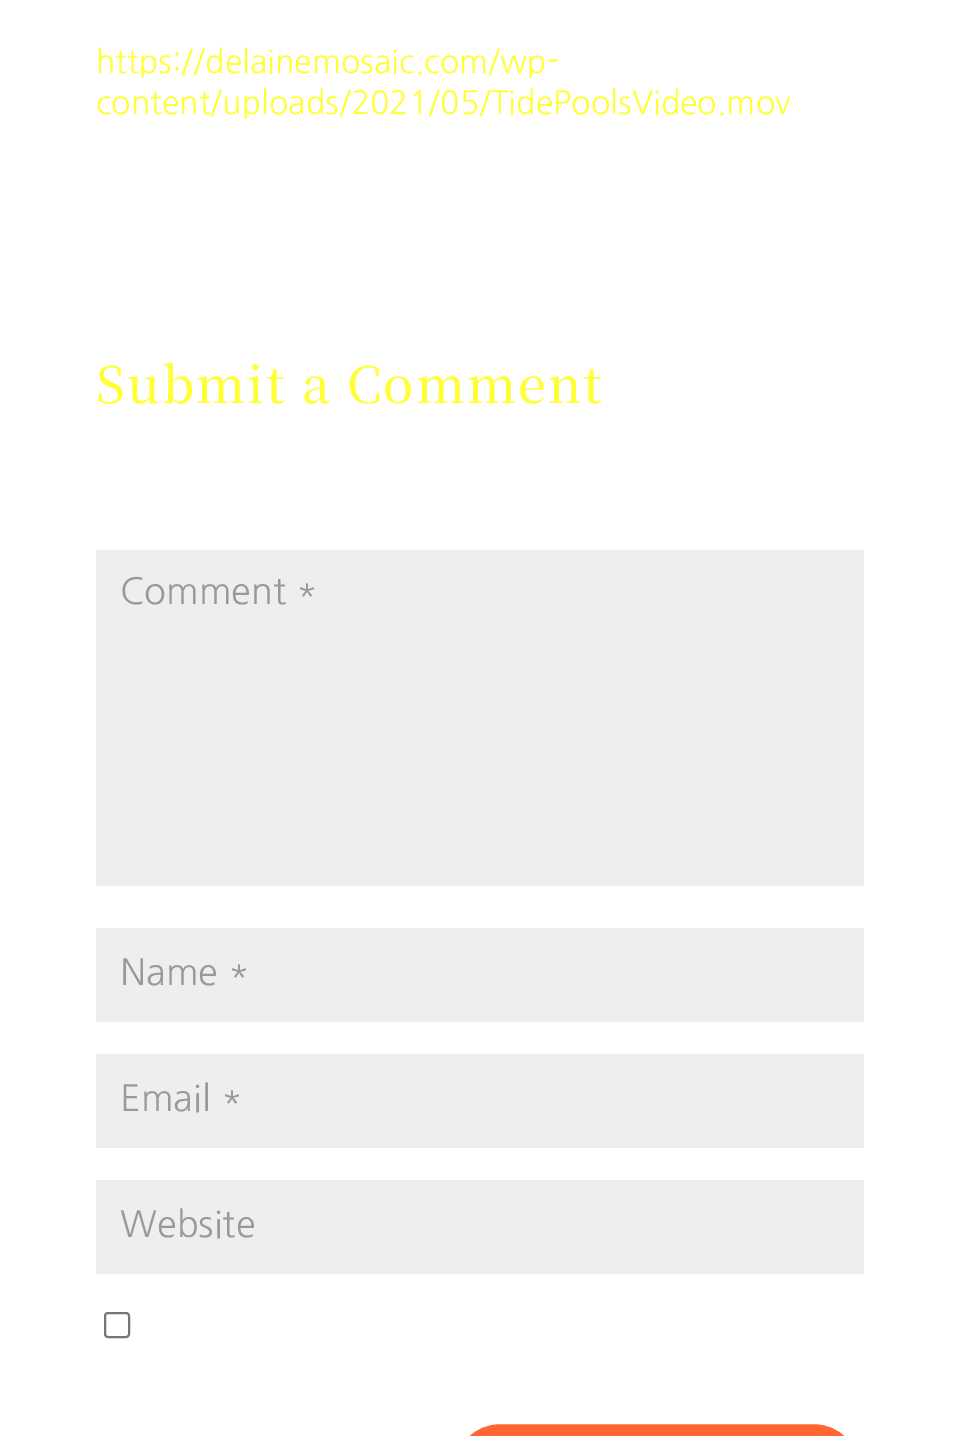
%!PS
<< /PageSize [960 1436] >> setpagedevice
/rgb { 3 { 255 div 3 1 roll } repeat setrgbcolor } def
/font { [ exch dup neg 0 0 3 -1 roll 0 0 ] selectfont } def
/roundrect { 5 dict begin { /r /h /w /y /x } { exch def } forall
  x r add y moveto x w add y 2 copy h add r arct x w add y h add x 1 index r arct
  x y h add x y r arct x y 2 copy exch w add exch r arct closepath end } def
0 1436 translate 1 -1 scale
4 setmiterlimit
255 255 255 rgb
0 0 960 1436 rectfill
[
  [96 550 768 336 238 238 238]
  [96 928 768 94 238 238 238]
  [96 1054 768 94 238 238 238]
  [96 1180 768 94 238 238 238]
] { aload pop rgb rectfill } forall
118 118 118 rgb
2 setlinewidth
105 1313 24 24 3 roundrect stroke
255 102 51 rgb
452 1422 410 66 48 roundrect gsave fill grestore
255 255 255 rgb
4 setlinewidth
stroke
/NanumGothic-Regular 32 font
255 255 51 rgb
96 73 moveto (https://delainemosaic.com/wp-) show
96 114 moveto (content/uploads/2021/05/TidePoolsVideo.mov) show
/NotoSerifKR-ExtraLight 50 font
96 403 moveto 2 0 (Submit a Comment) ashow
/NanumGothic-Regular 36 font
153 153 153 rgb
[
  [(Comment *) 120 604]
  [(Name *) 120 985]
  [(Email *) 120 1111]
  [(Website) 120 1237]
] { aload pop moveto show } forall
showpage
